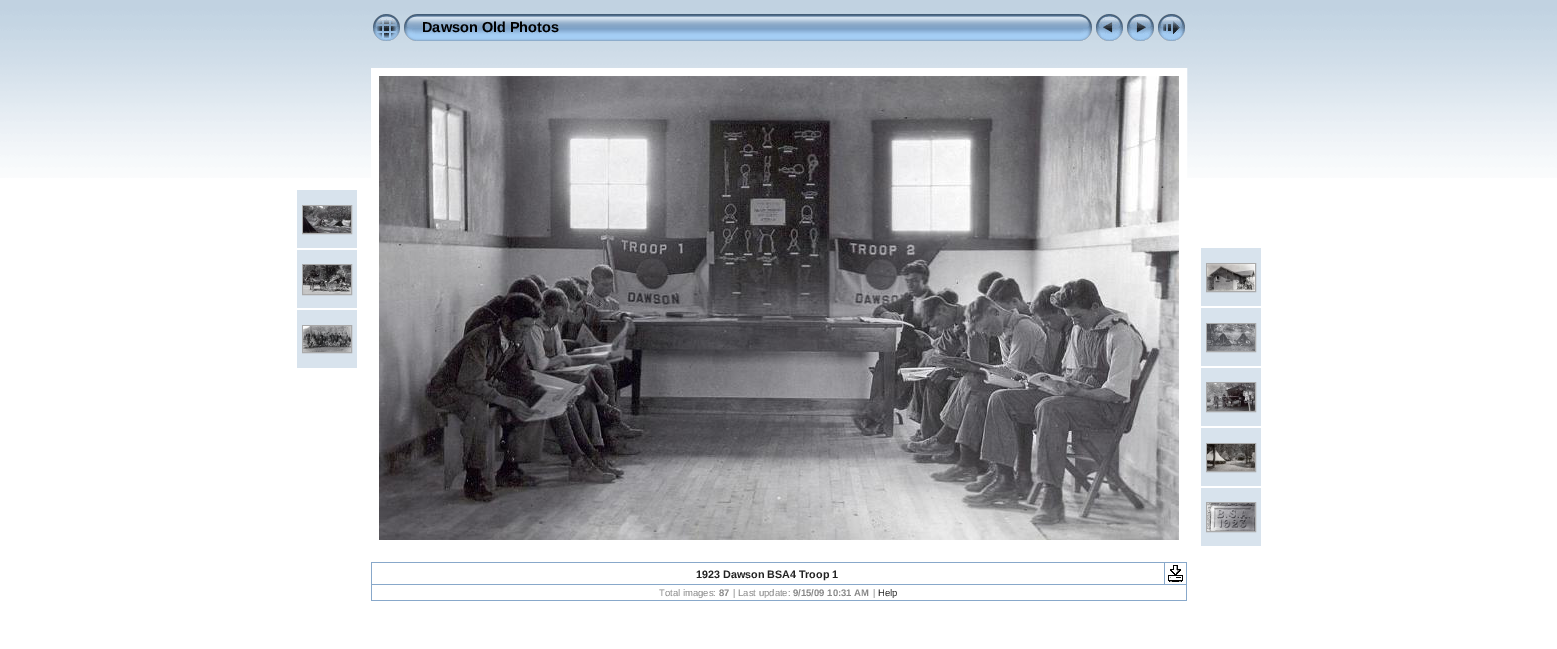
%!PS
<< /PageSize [1557 649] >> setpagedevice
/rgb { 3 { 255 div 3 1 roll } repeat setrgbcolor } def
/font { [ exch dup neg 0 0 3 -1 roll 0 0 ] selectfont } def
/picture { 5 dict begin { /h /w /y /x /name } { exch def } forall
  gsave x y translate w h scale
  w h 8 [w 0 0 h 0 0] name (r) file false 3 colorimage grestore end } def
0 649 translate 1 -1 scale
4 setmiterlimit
255 255 255 rgb
0 0 1557 649 rectfill
(img/1.rgb) 0 0 1557 178 picture
(img/2.rgb) 373 14 27 27 picture
(img/3.rgb) 404 14 18 27 picture
(img/4.rgb) 422 14 652 27 picture
(img/5.rgb) 1074 14 18 27 picture
(img/6.rgb) 1096 14 27 27 picture
(img/7.rgb) 1127 14 27 27 picture
(img/8.rgb) 1158 14 27 27 picture
216 227 237 rgb
297 190 60 58 rectfill
170 170 170 rgb
302.5 205.5 49 28 rectstroke
(img/9.rgb) 303 206 48 27 picture
216 227 237 rgb
297 250 60 58 rectfill
170 170 170 rgb
302.5 264.5 49 30 rectstroke
(img/10.rgb) 303 265 48 29 picture
216 227 237 rgb
297 310 60 58 rectfill
170 170 170 rgb
302.5 325.5 49 27 rectstroke
(img/11.rgb) 303 326 48 26 picture
255 255 255 rgb
8 setlinewidth
375 72 808 472 rectstroke
(img/12.rgb) 379 76 800 464 picture
216 227 237 rgb
1201 248 60 58 rectfill
170 170 170 rgb
1 setlinewidth
1206.5 263.5 49 28 rectstroke
(img/13.rgb) 1207 264 48 27 picture
216 227 237 rgb
1201 308 60 58 rectfill
170 170 170 rgb
1206.5 323.5 49 28 rectstroke
(img/14.rgb) 1207 324 48 27 picture
216 227 237 rgb
1201 368 60 58 rectfill
170 170 170 rgb
1206.5 382.5 49 29 rectstroke
(img/15.rgb) 1207 383 48 28 picture
216 227 237 rgb
1201 428 60 58 rectfill
170 170 170 rgb
1206.5 443.5 49 28 rectstroke
(img/16.rgb) 1207 444 48 27 picture
216 227 237 rgb
1201 488 60 58 rectfill
170 170 170 rgb
1206.5 502.5 49 29 rectstroke
(img/17.rgb) 1207 503 48 28 picture
[
  [371 562 816 1 136 168 202]
  [1186 562 1 39 136 168 202]
  [371 600 816 1 136 168 202]
  [371 562 1 39 136 168 202]
  [371 584 816 1 136 168 202]
  [1164 562 1 23 136 168 202]
] { aload pop rgb rectfill } forall
(img/18.rgb) 1168 565 15 17 picture
/LiberationSans-Bold 14.5 font
0 0 0 rgb
422 32 moveto (Dawson Old Photos) show
/LiberationSans-Bold 10.75 font
34 34 34 rgb
696 578 moveto (1923 Dawson BSA4 Troop 1) show
/LiberationSans-Regular 9.5 font
136 136 136 rgb
659 596 moveto (Total images:) show
/LiberationSans-Bold 9.5 font
719 596 moveto (87) show
/LiberationSans-Regular 9.5 font
733 596 moveto (| Last update:) show
/LiberationSans-Bold 9.5 font
793 596 moveto (9/15/09 10:31 AM) show
/LiberationSans-Regular 9.5 font
873 596 moveto (|) show
34 34 34 rgb
878 596 moveto (Help) show
showpage
